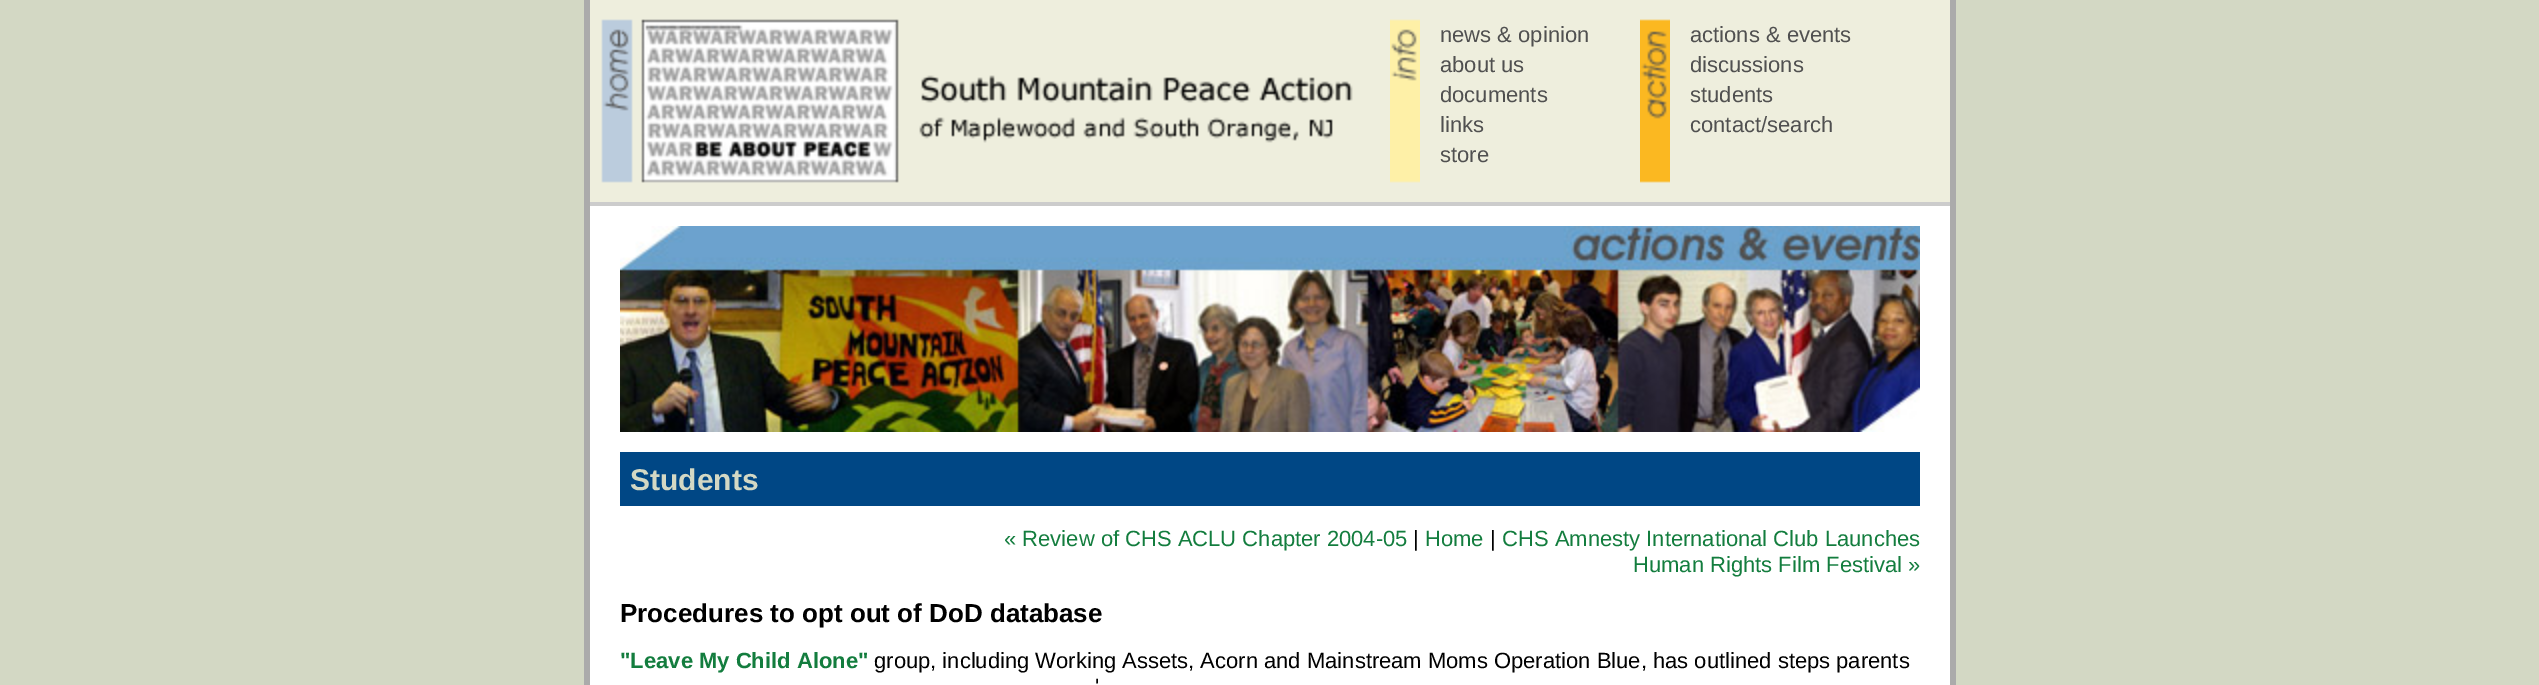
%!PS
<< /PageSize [2539 685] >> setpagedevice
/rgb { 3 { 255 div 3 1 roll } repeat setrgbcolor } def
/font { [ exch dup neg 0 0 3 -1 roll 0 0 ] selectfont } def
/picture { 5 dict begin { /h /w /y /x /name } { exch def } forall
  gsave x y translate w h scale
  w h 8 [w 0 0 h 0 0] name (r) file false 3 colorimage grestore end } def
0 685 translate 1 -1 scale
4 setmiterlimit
211 216 196 rgb
0 0 2539 685 rectfill
[
  [590 206 1360 479 255 255 255]
  [1950 0 6 685 171 171 171]
  [584 0 6 685 171 171 171]
] { aload pop rgb rectfill } forall
(img/1.rgb) 590 0 1360 202 picture
204 204 204 rgb
590 202 1360 4 rectfill
(img/2.rgb) 1390 19 30 164 picture
(img/3.rgb) 1640 19 30 164 picture
(img/4.rgb) 620 226 1300 206 picture
0 71 133 rgb
620 452 1300 54 rectfill
/LiberationSans-Regular 22 font
80 80 80 rgb
[
  [(news & opinion) 1440 42]
  [(about us) 1440 72]
  [(documents) 1440 102]
  [(links) 1440 132]
  [(store) 1440 162]
  [(actions & events) 1690 42]
  [(discussions) 1690 72]
  [(students) 1690 102]
  [(contact/search) 1690 132]
] { aload pop moveto show } forall
/LiberationSans-Bold 30 font
211 216 196 rgb
630 490 moveto (Students) show
/LiberationSans-Regular 22 font
19 125 62 rgb
1004 546 moveto (« Review of CHS ACLU Chapter 2004-05) show
0 0 0 rgb
1413 546 moveto (|) show
19 125 62 rgb
1425 546 moveto (Home) show
0 0 0 rgb
1490 546 moveto (|) show
19 125 62 rgb
1502 546 moveto (CHS Amnesty International Club Launches) show
1633 572 moveto (Human Rights Film Festival ») show
/LiberationSans-Bold 26 font
0 0 0 rgb
620 622 moveto (Procedures to opt out of DoD database) show
/LiberationSans-Bold 22 font
19 125 62 rgb
620 668 moveto ("Leave My Child Alone") show
/LiberationSans-Regular 22 font
0 0 0 rgb
874 668 moveto (group, including Working Assets, Acorn and Mainstream Moms Operation Blue, has outlined steps parents) show
1095 694 moveto (') show
showpage
